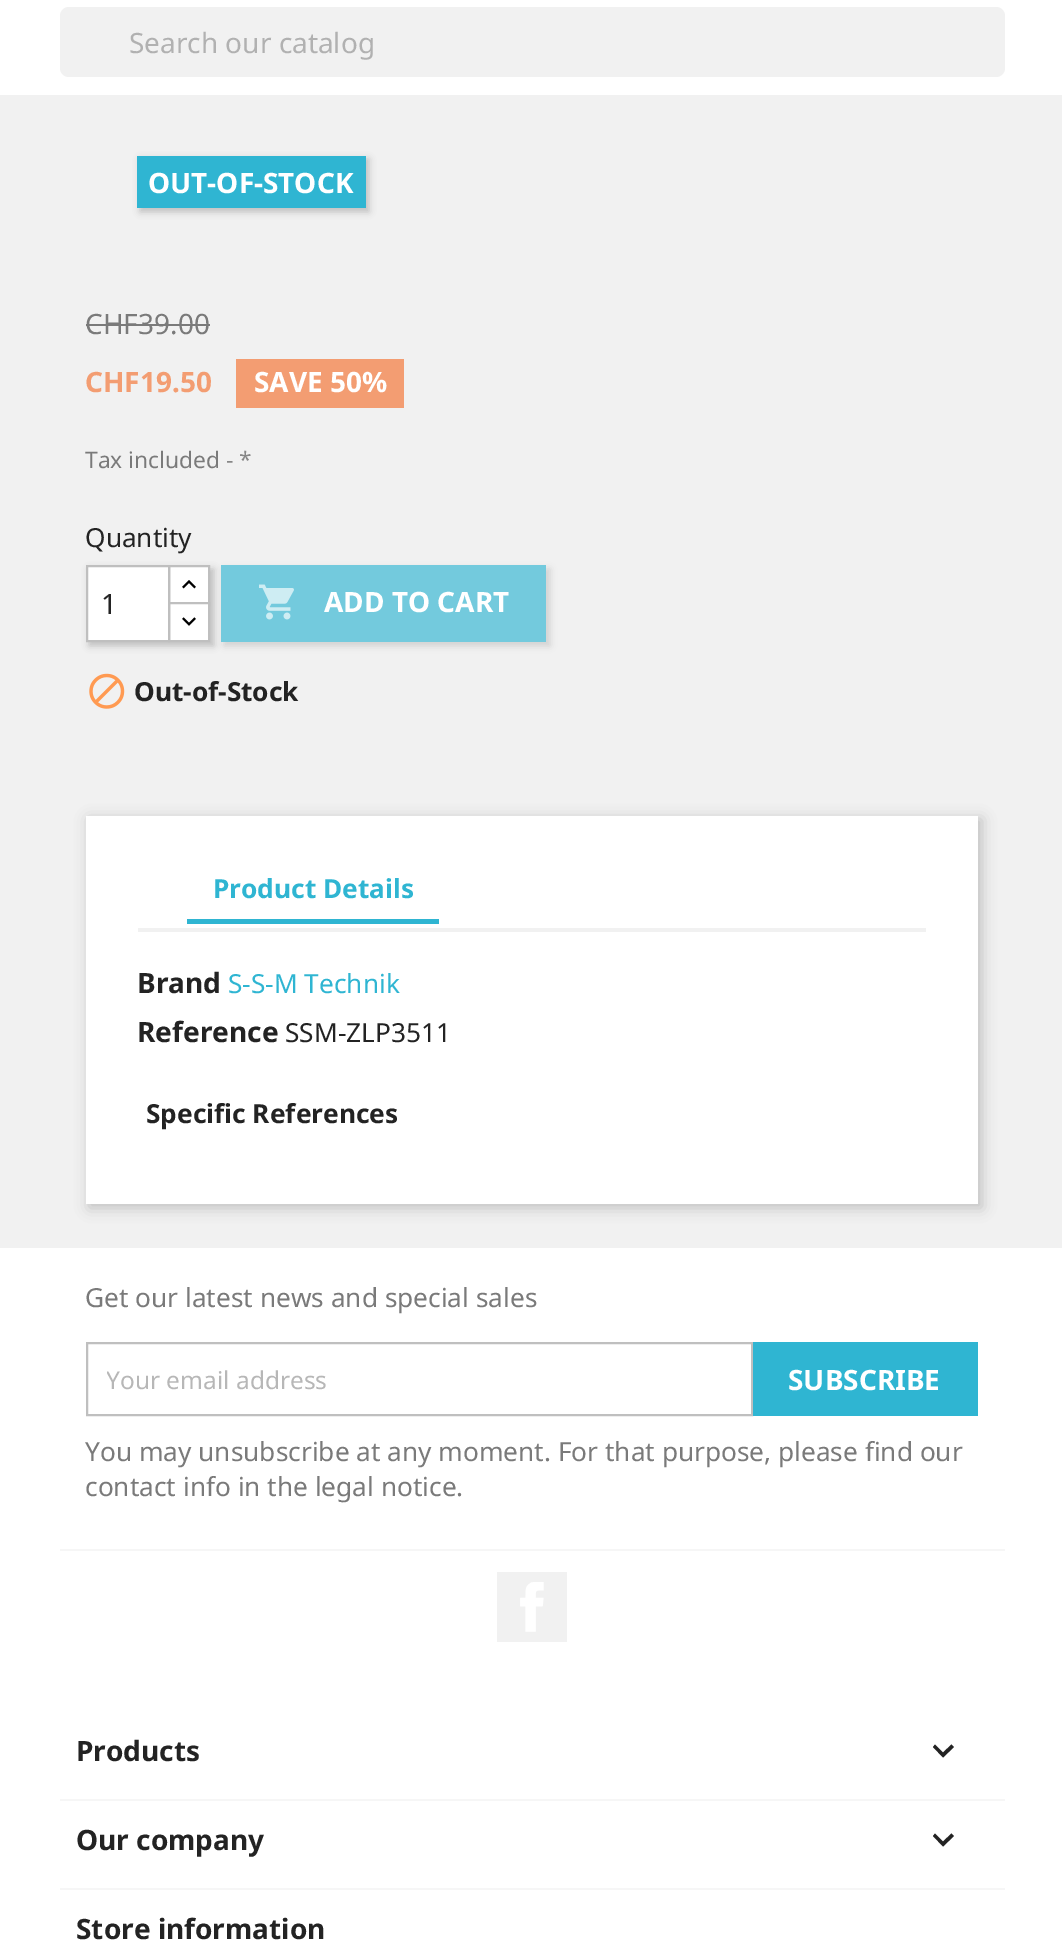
%!PS
<< /PageSize [1062 1946] /PageUsesTransparency true >> setpagedevice
/rgb { 3 { 255 div 3 1 roll } repeat setrgbcolor } def
/font { [ exch dup neg 0 0 3 -1 roll 0 0 ] selectfont } def
/alpha { dup .setfillconstantalpha .setstrokeconstantalpha } def
/roundrect { 5 dict begin { /r /h /w /y /x } { exch def } forall
  x r add y moveto x w add y 2 copy h add r arct x w add y h add x 1 index r arct
  x y h add x y r arct x y 2 copy exch w add exch r arct closepath end } def
/shadow { 12 dict begin { /a /b /q /h /w /y /x } { exch def } forall gsave /was 0 def
  9 -2 -9 { dup b mul 4 div /e exch def 1 sub .425 mul 2.718 exch exp 1 add a .99 .min exch div /now exch def
    1 1 now sub 1 was sub div sub alpha /was now def
    w h .min e 2 mul add 0 gt { x e sub y e sub w e 2 mul add h e 2 mul add
      q e add b .6 mul add w h .min 2 div e add .min 0 .max roundrect fill } if } for grestore end } def
/picture { 5 dict begin { /h /w /y /x /name } { exch def } forall
  gsave x y translate w h scale
  w h 8 [w 0 0 h 0 0] name (r) file false 3 colorimage grestore end } def
0 .pushpdf14devicefilter
0 1946 translate 1 -1 scale
4 setmiterlimit
255 255 255 rgb
0 0 1062 1946 rectfill
241 241 241 rgb
60 7 945 70 9 roundrect fill
0 95 1062 1153 rectfill
0 0 0 rgb
140 159 229 53 0 3.5 0.2 shadow
[
  [137 156 229 52 47 181 210]
  [86 324 124 2 122 122 122]
  [236 359 168 49 243 157 114]
] { aload pop rgb rectfill } forall
0 0 0 rgb
89 569 125 77 0 3.5 0.2 shadow
255 255 255 rgb
170 567 38 35 rectfill
191 191 191 rgb
2 setlinewidth
169 566 40 39 rectstroke
255 255 255 rgb
169 603 moveto 209 603 lineto 209 641 lineto 169 641 lineto closepath gsave fill grestore
191 191 191 rgb
stroke
255 255 255 rgb
87 566 moveto 169 566 lineto 169 641 lineto 87 641 lineto closepath gsave fill grestore
191 191 191 rgb
stroke
(img/1.rgb) 182 580 14 9 picture
(img/2.rgb) 182 617 14 9 picture
0 0 0 rgb
224 569 326 77 0 3.5 0.13 shadow
115 202 221 rgb
221 565 325 77 rectfill
(img/3.rgb) 259 584 35 36 picture
(img/4.rgb) 89 673 36 36 picture
0 0 0 rgb
89 819 893 389 0 7 0.2 shadow
[
  [86 816 892 388 255 255 255]
  [138 928 788 4 241 241 241]
  [187 919 252 5 47 181 210]
  [60 1549 945 2 246 246 246]
] { aload pop rgb rectfill } forall
191 191 191 rgb
87 1343 665 72 rectstroke
47 181 210 rgb
753 1342 225 74 rectfill
241 241 241 rgb
497 1572 70 70 rectfill
(img/5.rgb) 520 1582 24 50 picture
246 246 246 rgb
60 1799 945 2 rectfill
35 35 35 rgb
935 1744.5 moveto 943 1752.5 lineto 951.5 1744.5 lineto 954 1747 lineto 943 1757.5 lineto 933 1747 lineto closepath fill
246 246 246 rgb
60 1888 945 2 rectfill
35 35 35 rgb
935 1833.5 moveto 943 1841.5 lineto 951.5 1833.5 lineto 954 1836 lineto 943 1846.5 lineto 933 1836 lineto closepath fill
/NotoSans-Regular 28 font
177 177 177 rgb
129 53 moveto (Search our catalog) show
/NotoSans-Bold 28 font
255 255 255 rgb
148 193 moveto (OUT-OF-STOCK) show
/NotoSans-Regular 28 font
122 122 122 rgb
85 334 moveto (CHF39.00) show
/NotoSans-Bold 28 font
243 157 114 rgb
85 392 moveto (CHF19.50) show
255 255 255 rgb
254 392 moveto (SAVE 50%) show
/NotoSans-Regular 22.75 font
122 122 122 rgb
85 468 moveto (Tax included) show
135 135 135 rgb
226 468 moveto (- *) show
/NotoSans-Regular 26.25 font
35 35 35 rgb
85 547 moveto (Quantity) show
/NotoSans-Regular 28 font
101 614 moveto (1) show
/NotoSans-Bold 28 font
255 255 255 rgb
324 612 moveto (ADD TO CART) show
/NotoSans-Bold 26.25 font
35 35 35 rgb
134 701 moveto (Out-of-Stock) show
47 181 210 rgb
213 898 moveto (Product Details) show
/NotoSans-Bold 28 font
35 35 35 rgb
137 993 moveto (Brand) show
/NotoSans-Regular 26.25 font
47 181 210 rgb
228 993 moveto (S-S-M Technik) show
/NotoSans-Bold 28 font
35 35 35 rgb
137 1042 moveto (Reference) show
/NotoSans-Regular 26.25 font
285 1042 moveto (SSM-ZLP3511) show
/NotoSans-Bold 26.25 font
146 1123 moveto (Specific References) show
/NotoSans-Regular 26.25 font
122 122 122 rgb
85 1307 moveto (Get our latest news and special sales) show
gsave
107 1363 625 34 rectclip
/NotoSans-Regular 24.5 font
183 183 183 rgb
106 1389 moveto (Your email address) show
grestore
/NotoSans-Bold 28 font
255 255 255 rgb
788 1390 moveto (SUBSCRIBE) show
/NotoSans-Regular 26.25 font
122 122 122 rgb
85 1461 moveto (You may unsubscribe at any moment. For that purpose, please find our) show
85 1496 moveto (contact info in the legal notice.) show
/NotoSans-Bold 28 font
35 35 35 rgb
[
  [(Products) 76 1761]
  [(Our company) 76 1850]
  [(Store information) 76 1939]
] { aload pop moveto show } forall
.poppdf14devicefilter showpage
